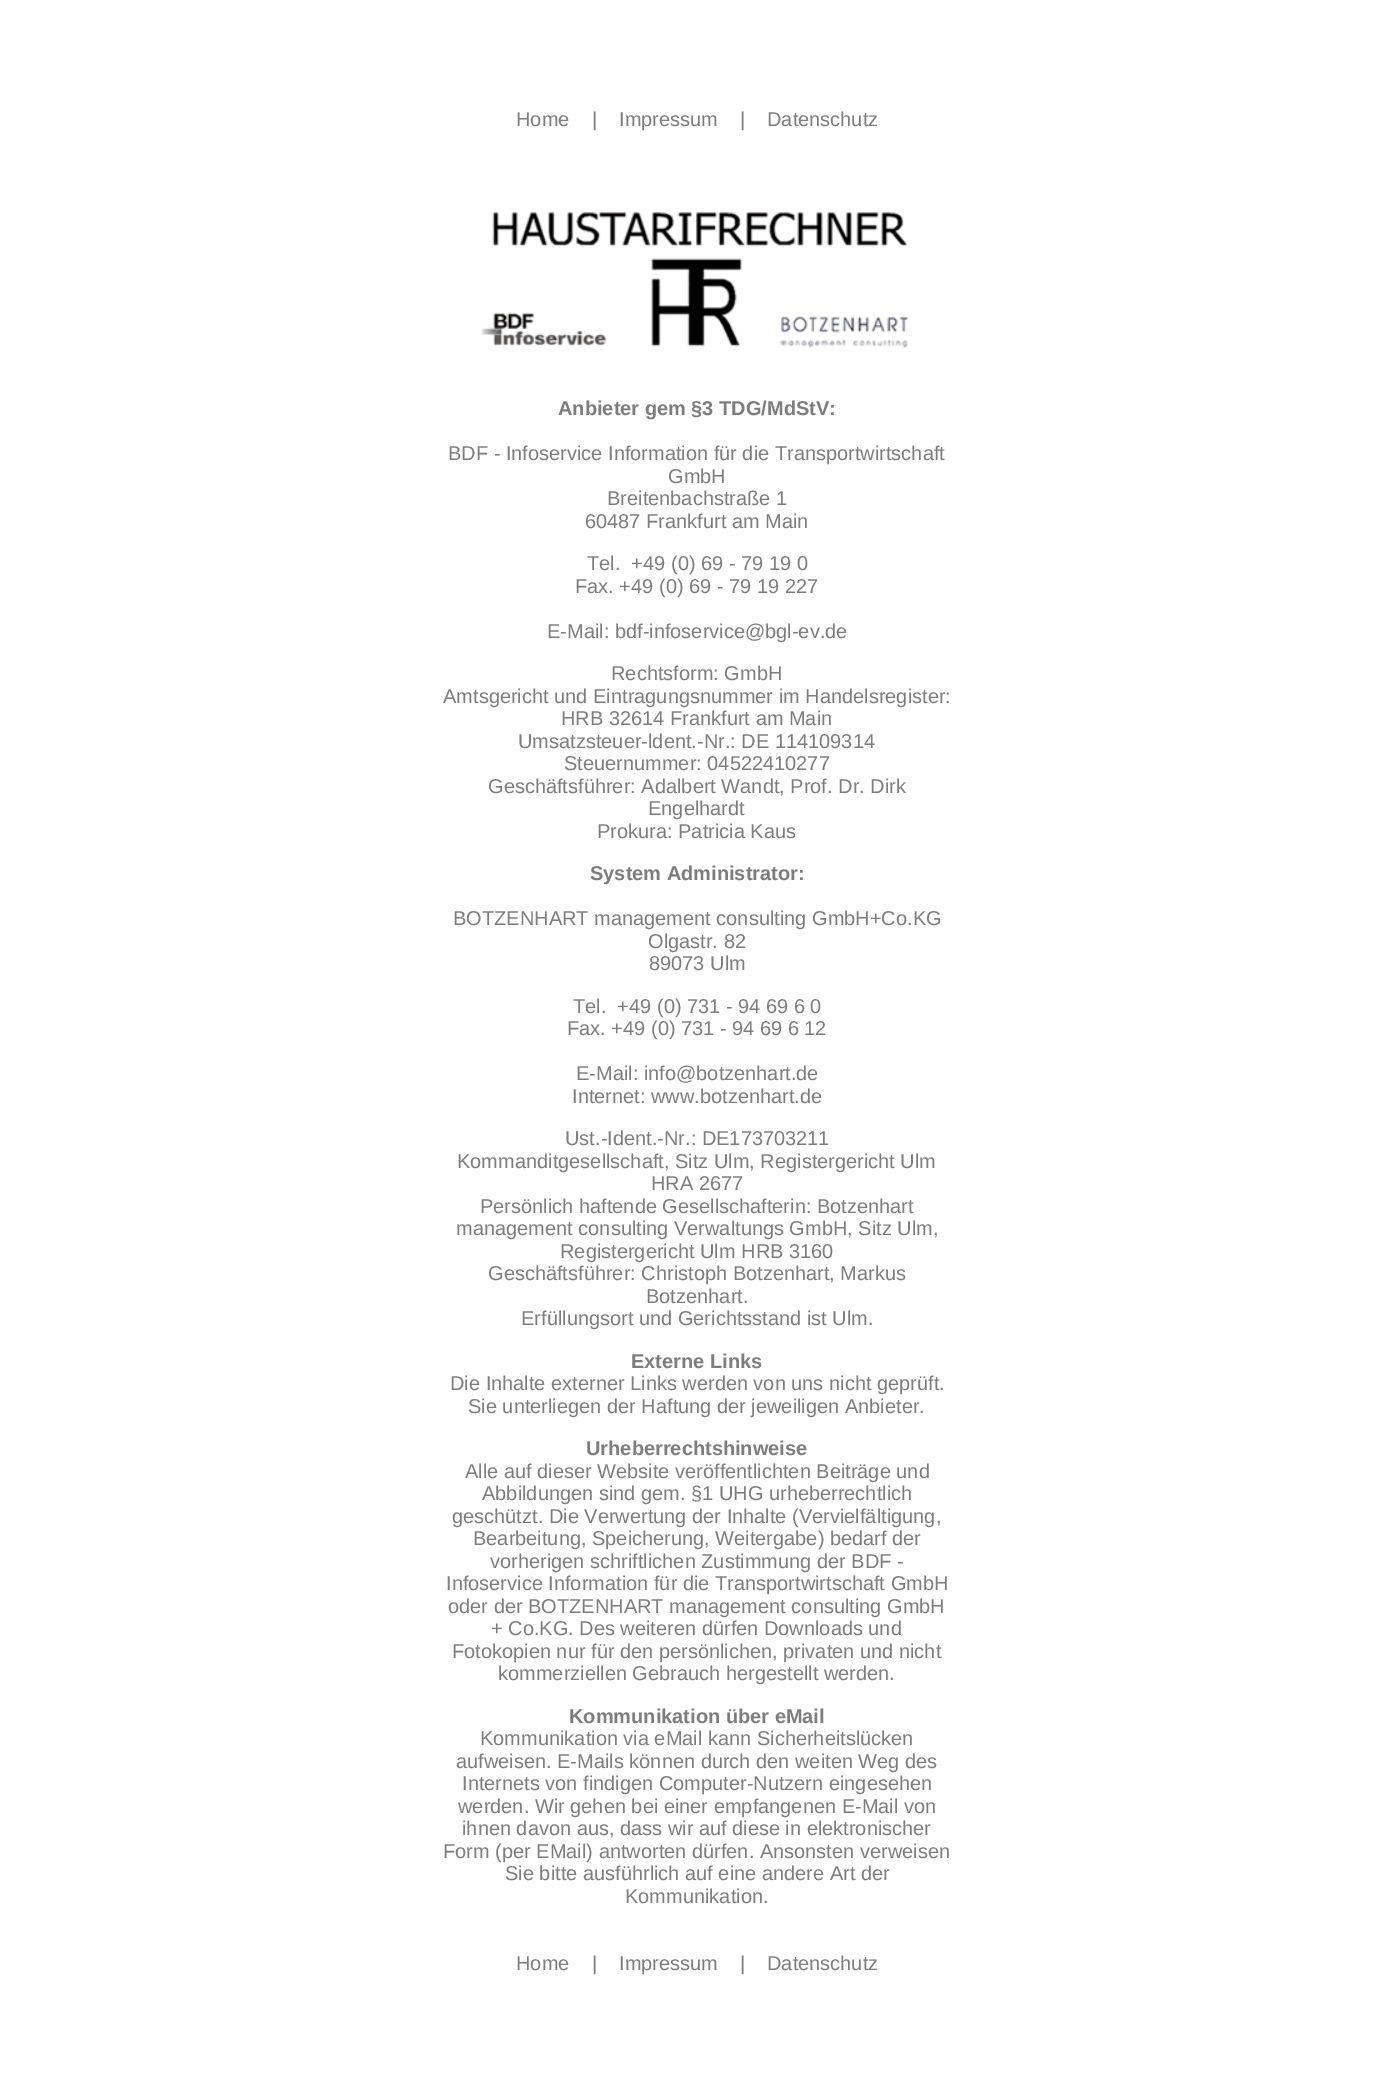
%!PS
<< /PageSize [1393 2083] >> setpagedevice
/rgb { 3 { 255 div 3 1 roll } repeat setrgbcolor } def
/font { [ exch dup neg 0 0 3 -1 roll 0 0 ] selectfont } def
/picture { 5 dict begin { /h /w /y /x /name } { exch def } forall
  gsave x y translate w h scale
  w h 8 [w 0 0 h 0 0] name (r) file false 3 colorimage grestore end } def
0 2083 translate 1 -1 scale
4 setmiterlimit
255 255 255 rgb
0 0 1393 2083 rectfill
(img/1.rgb) 481 211 428 138 picture
/LiberationSans-Regular 20 font
125 125 125 rgb
[
  [(Home    |) 516 126]
  [(Impressum    |) 619 126]
  [(Datenschutz) 767 126]
] { aload pop moveto show } forall
/LiberationSans-Bold 20 font
558 415 moveto (Anbieter gem §3 TDG/MdStV:) show
/LiberationSans-Regular 20 font
[
  [(BDF - Infoservice Information für die Transportwirtschaft) 448 460]
  [(GmbH) 668 483]
  [(Breitenbachstraße 1) 607 505]
  [(60487 Frankfurt am Main) 585 528]
  [(Tel.  +49 \(0\) 69 - 79 19 0) 587 570]
  [(Fax. +49 \(0\) 69 - 79 19 227) 575 593]
  [(E-Mail: bdf-infoservice@bgl-ev.de) 547 638]
  [(Rechtsform: GmbH) 611 680]
  [(Amtsgericht und Eintragungsnummer im Handelsregister:) 443 703]
  [(HRB 32614 Frankfurt am Main) 561 725]
  [(Umsatzsteuer-ldent.-Nr.: DE 114109314) 518 748]
  [(Steuernummer: 04522410277) 564 770]
  [(Geschäftsführer: Adalbert Wandt, Prof. Dr. Dirk) 488 793]
  [(Engelhardt) 648 815]
  [(Prokura: Patricia Kaus) 597 838]
] { aload pop moveto show } forall
/LiberationSans-Bold 20 font
590 880 moveto (System Administrator:) show
/LiberationSans-Regular 20 font
[
  [(BOTZENHART management consulting GmbH+Co.KG) 453 925]
  [(Olgastr. 82) 648 948]
  [(89073 Ulm) 649 970]
  [(Tel.  +49 \(0\) 731 - 94 69 6 0) 573 1013]
  [(Fax. +49 \(0\) 731 - 94 69 6 12) 567 1035]
  [(E-Mail: info@botzenhart.de) 576 1080]
  [(Internet: www.botzenhart.de) 572 1103]
  [(Ust.-Ident.-Nr.: DE173703211) 565 1145]
  [(Kommanditgesellschaft, Sitz Ulm, Registergericht Ulm) 457 1168]
  [(HRA 2677) 651 1190]
  [(Persönlich haftende Gesellschafterin: Botzenhart) 480 1213]
  [(management consulting Verwaltungs GmbH, Sitz Ulm,) 456 1235]
  [(Registergericht Ulm HRB 3160) 560 1258]
  [(Geschäftsführer: Christoph Botzenhart, Markus) 488 1280]
  [(Botzenhart.) 646 1303]
  [(Erfüllungsort und Gerichtsstand ist Ulm.) 521 1325]
] { aload pop moveto show } forall
/LiberationSans-Bold 20 font
631 1368 moveto (Externe Links) show
/LiberationSans-Regular 20 font
450 1390 moveto (Die Inhalte externer Links werden von uns nicht geprüft.) show
468 1413 moveto (Sie unterliegen der Haftung der jeweiligen Anbieter.) show
/LiberationSans-Bold 20 font
586 1455 moveto (Urheberrechtshinweise) show
/LiberationSans-Regular 20 font
[
  [(Alle auf dieser Website veröffentlichten Beiträge und) 465 1478]
  [(Abbildungen sind gem. §1 UHG urheberrechtlich) 482 1500]
  [(geschützt. Die Verwertung der Inhalte \(Vervielfältigung,) 452 1523]
  [(Bearbeitung, Speicherung, Weitergabe\) bedarf der) 473 1545]
  [(vorherigen schriftlichen Zustimmung der BDF -) 490 1568]
  [(Infoservice Information für die Transportwirtschaft GmbH) 446 1590]
  [(oder der BOTZENHART management consulting GmbH) 448 1613]
  [(+ Co.KG. Des weiteren dürfen Downloads und) 491 1635]
  [(Fotokopien nur für den persönlichen, privaten und nicht) 452 1658]
  [(kommerziellen Gebrauch hergestellt werden.) 498 1680]
] { aload pop moveto show } forall
/LiberationSans-Bold 20 font
569 1723 moveto (Kommunikation über eMail) show
/LiberationSans-Regular 20 font
[
  [(Kommunikation via eMail kann Sicherheitslücken) 480 1745]
  [(aufweisen. E-Mails können durch den weiten Weg des) 456 1768]
  [(Internets von findigen Computer-Nutzern eingesehen) 462 1790]
  [(werden. Wir gehen bei einer empfangenen E-Mail von) 458 1813]
  [(ihnen davon aus, dass wir auf diese in elektronischer) 462 1835]
  [(Form \(per EMail\) antworten dürfen. Ansonsten verweisen) 443 1858]
  [(Sie bitte ausführlich auf eine andere Art der) 505 1880]
  [(Kommunikation.) 625 1903]
  [(Home    |) 516 1970]
  [(Impressum    |) 619 1970]
  [(Datenschutz) 767 1970]
] { aload pop moveto show } forall
showpage
